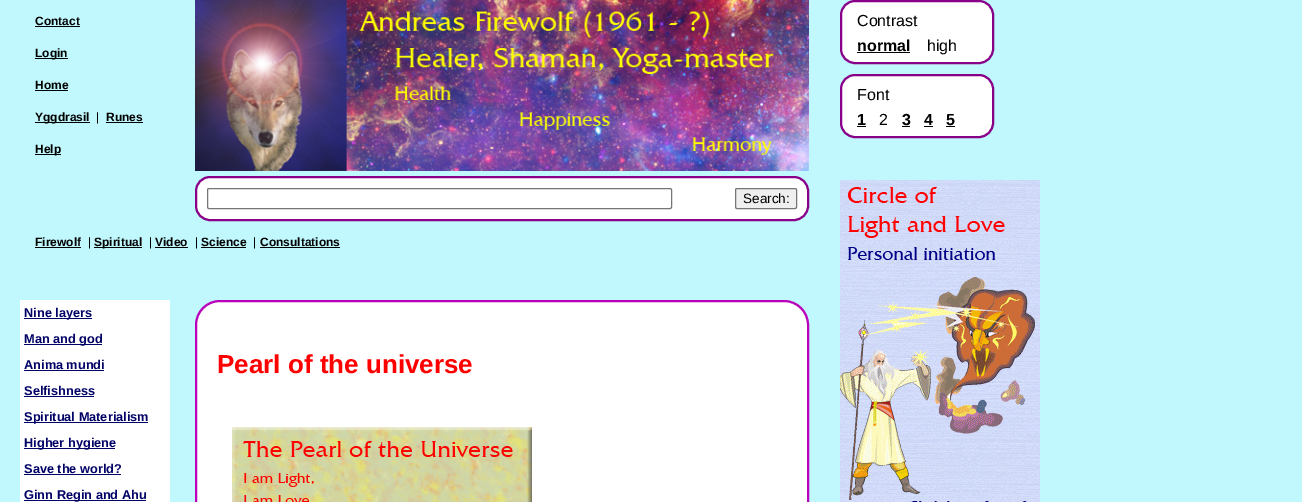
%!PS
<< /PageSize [1302 502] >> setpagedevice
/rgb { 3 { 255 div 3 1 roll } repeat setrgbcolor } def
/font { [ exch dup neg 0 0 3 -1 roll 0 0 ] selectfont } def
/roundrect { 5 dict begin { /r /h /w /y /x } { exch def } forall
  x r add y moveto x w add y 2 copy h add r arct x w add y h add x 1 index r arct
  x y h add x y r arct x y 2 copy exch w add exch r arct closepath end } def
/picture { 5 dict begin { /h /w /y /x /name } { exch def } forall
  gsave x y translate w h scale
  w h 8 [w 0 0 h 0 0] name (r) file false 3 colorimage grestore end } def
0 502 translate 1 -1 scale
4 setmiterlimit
193 248 253 rgb
0 0 1302 502 rectfill
[
  [35 26 45 1 0 0 0]
  [35 58 33 1 0 0 0]
  [35 90 33 1 0 0 0]
  [35 122 55 1 0 0 0]
  [106 122 37 1 0 0 0]
  [35 154 26 1 0 0 0]
] { aload pop rgb rectfill } forall
(img/1.rgb) 195 0 614 171 picture
255 255 255 rgb
196 177 612 43 14 roundrect gsave fill grestore
136 0 136 rgb
2 setlinewidth
stroke
118 118 118 rgb
1 setlinewidth
207.5 188.5 464 20 1.5 roundrect stroke
239 239 239 rgb
735.5 188.5 61 20 1.5 roundrect gsave fill grestore
118 118 118 rgb
stroke
[
  [35 247 46 1 0 0 0]
  [94 247 48 1 0 0 0]
  [155 247 33 1 0 0 0]
  [201 247 45 1 0 0 0]
  [260 247 80 1 0 0 0]
] { aload pop rgb rectfill } forall
255 255 255 rgb
841 1 152 62 14 roundrect gsave fill grestore
136 0 136 rgb
2 setlinewidth
stroke
0 0 0 rgb
857 52 53 1 rectfill
255 255 255 rgb
841 75 152 62 14 roundrect gsave fill grestore
136 0 136 rgb
stroke
[
  [857 126 9 1 0 0 0]
  [902 126 8 1 0 0 0]
  [924 126 9 1 0 0 0]
  [946 126 9 1 0 0 0]
] { aload pop rgb rectfill } forall
(img/2.rgb) 840 180 200 322 picture
[
  [20 300 150 202 255 255 255]
  [24 318 68 1 0 0 102]
  [24 344 78 1 0 0 102]
  [24 370 80 1 0 0 102]
  [24 396 70 1 0 0 102]
  [24 422 124 1 0 0 102]
  [24 448 91 1 0 0 102]
  [24 474 97 1 0 0 102]
  [24 500 122 1 0 0 102]
] { aload pop rgb rectfill } forall
255 255 255 rgb
196 301 612 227 24 roundrect gsave fill grestore
187 0 187 rgb
stroke
(img/3.rgb) 232 427 300 75 picture
/LiberationSans-Bold 12 font
0 0 0 rgb
[
  [(Contact) 35 25]
  [(Login) 35 57]
  [(Home) 35 89]
  [(Yggdrasil) 35 121]
] { aload pop moveto show } forall
/LiberationSans-Regular 12 font
96 121 moveto (|) show
/LiberationSans-Bold 12 font
106 121 moveto (Runes) show
35 153 moveto (Help) show
/LiberationSans-Regular 13.5 font
743 203 moveto (Search:) show
/LiberationSans-Bold 12 font
35 246 moveto (Firewolf) show
/LiberationSans-Regular 12 font
88 246 moveto (|) show
/LiberationSans-Bold 12 font
94 246 moveto (Spiritual) show
/LiberationSans-Regular 12 font
149 246 moveto (|) show
/LiberationSans-Bold 12 font
155 246 moveto (Video) show
/LiberationSans-Regular 12 font
195 246 moveto (|) show
/LiberationSans-Bold 12 font
201 246 moveto (Science) show
/LiberationSans-Regular 12 font
253 246 moveto (|) show
/LiberationSans-Bold 12 font
260 246 moveto (Consultations) show
/LiberationSans-Regular 16 font
857 26 moveto (Contrast) show
/LiberationSans-Bold 16 font
857 51 moveto (normal) show
/LiberationSans-Regular 16 font
927 51 moveto (high) show
857 100 moveto (Font) show
/LiberationSans-Bold 16 font
857 125 moveto (1) show
/LiberationSans-Regular 16 font
879 125 moveto (2) show
/LiberationSans-Bold 16 font
[
  [(3) 902 125]
  [(4) 924 125]
  [(5) 946 125]
] { aload pop moveto show } forall
/LiberationSans-Bold 12.75 font
0 0 102 rgb
[
  [(Nine layers) 24 317]
  [(Man and god) 24 343]
  [(Anima mundi) 24 369]
  [(Selfishness) 24 395]
  [(Spiritual Materialism) 24 421]
  [(Higher hygiene) 24 447]
  [(Save the world?) 24 473]
  [(Ginn Regin and Ahu) 24 499]
] { aload pop moveto show } forall
/LiberationSans-Bold 26 font
255 0 0 rgb
217 373 moveto (Pearl of the universe) show
showpage
